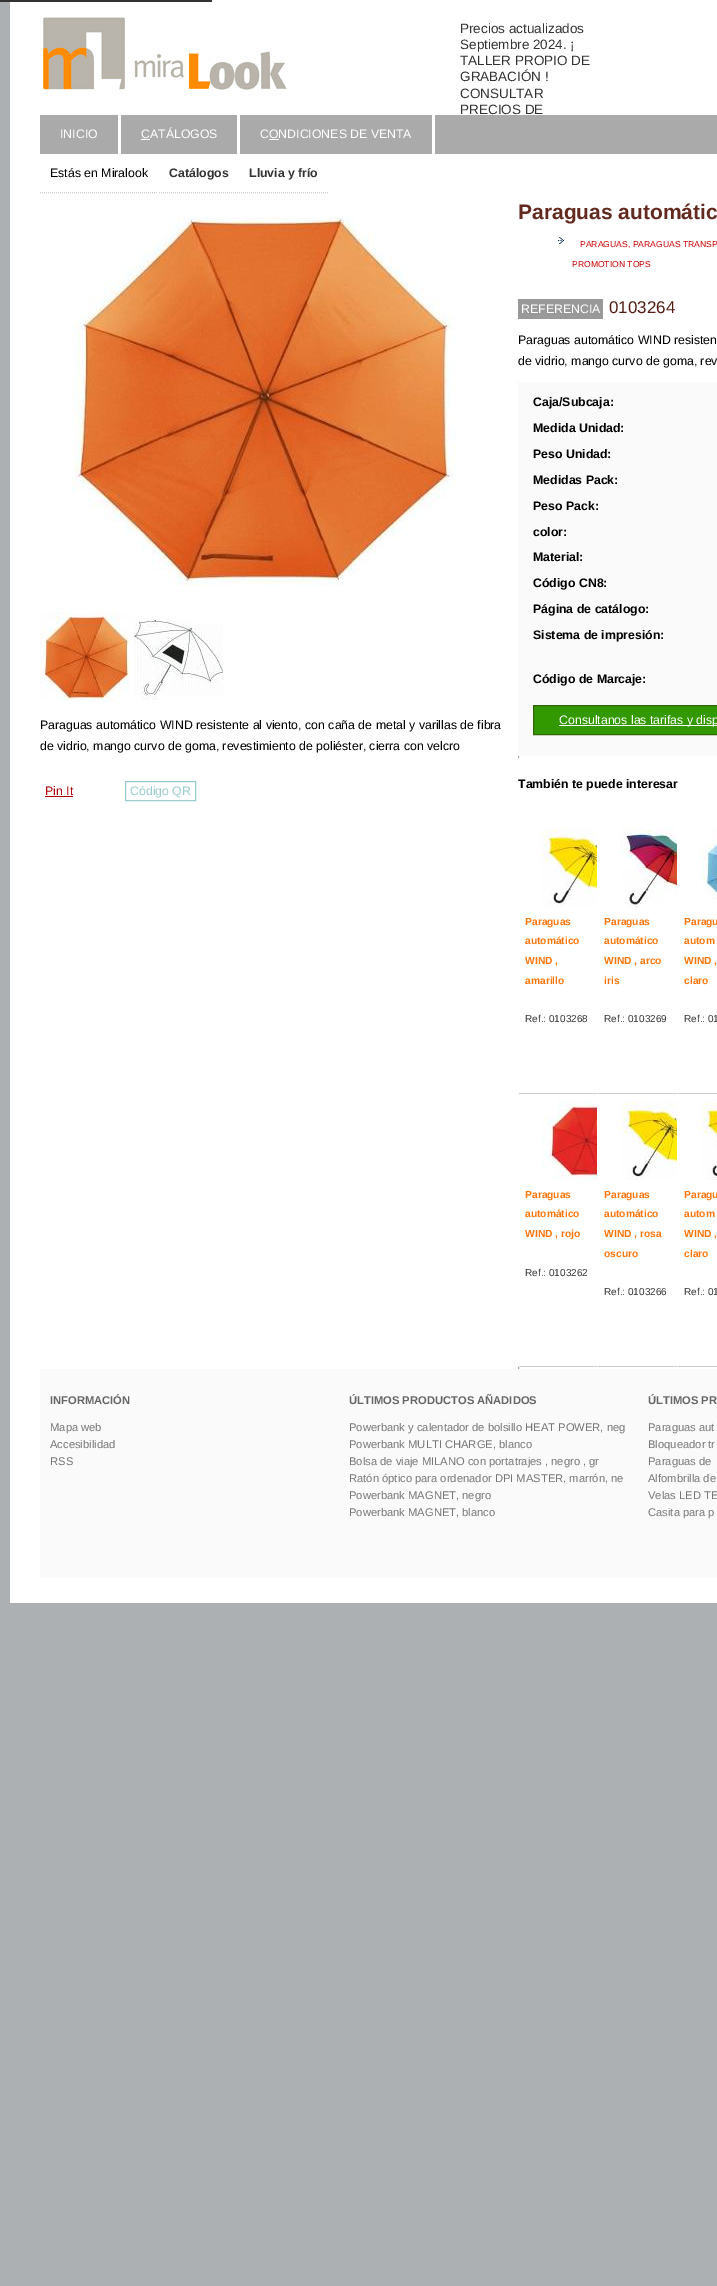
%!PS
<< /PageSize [717 2286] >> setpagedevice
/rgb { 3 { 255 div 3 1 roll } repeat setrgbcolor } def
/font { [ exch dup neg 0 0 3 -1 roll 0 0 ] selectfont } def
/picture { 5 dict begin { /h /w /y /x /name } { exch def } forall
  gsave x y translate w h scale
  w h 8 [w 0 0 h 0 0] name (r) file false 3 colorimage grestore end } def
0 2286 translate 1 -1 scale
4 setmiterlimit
173 176 178 rgb
0 0 717 2286 rectfill
255 255 255 rgb
10 0 707 1603 rectfill
51 51 51 rgb
0 0 212 2 rectfill
(img/1.rgb) 40 16 248 80 picture
[
  [40 115 677 39 170 170 170]
  [118 115 3 39 255 255 255]
  [237 115 3 39 255 255 255]
  [141 139 9 1 255 255 255]
  [432 115 3 39 255 255 255]
  [269 139 10 1 255 255 255]
] { aload pop rgb rectfill } forall
204 204 204 rgb
[1 1] 0 setdash
40 192.5 moveto 158 192.5 lineto stroke
159 192.5 moveto 238 192.5 lineto stroke
239 192.5 moveto 329 192.5 lineto stroke
(img/2.rgb) 72 217 384 369 picture
(img/3.rgb) 40 612 90 90 picture
(img/4.rgb) 133 620 90 80 picture
176 0 9 rgb
45 796 28 1 rectfill
153 204 204 rgb
[] 0 setdash
125.5 781.5 70 19 rectstroke
(img/5.rgb) 558 237 6 7 picture
153 153 153 rgb
518 299 85 20 rectfill
250 250 250 rgb
518 382 199 374 rectfill
51 153 0 rgb
533.5 705.5 moveto 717.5 705.5 lineto 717.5 734.5 lineto 533.5 734.5 lineto closepath gsave fill grestore
51 102 0 rgb
stroke
[
  [559 725 158 1 255 255 255]
  [519 756 1 2 238 238 238]
  [518 757 2 1 238 238 238]
  [518 756 1 2 159 159 159]
  [518 1093 199 1 204 204 204]
  [518 1093 1 1 255 255 255]
] { aload pop rgb rectfill } forall
(img/6.rgb) 540 828 57 79 picture
597 1093 1 1 rectfill
(img/7.rgb) 620 828 57 79 picture
677 1093 1 1 rectfill
(img/8.rgb) 700 828 17 71 picture
204 204 204 rgb
518 1366 199 1 rectfill
255 255 255 rgb
518 1366 1 1 rectfill
(img/9.rgb) 541 1101 56 79 picture
597 1366 1 1 rectfill
(img/10.rgb) 619 1101 58 79 picture
677 1366 1 1 rectfill
(img/11.rgb) 699 1101 18 79 picture
[
  [519 1367 1 2 238 238 238]
  [518 1368 2 1 238 238 238]
  [518 1367 1 2 159 159 159]
  [40 1369 677 209 250 250 250]
] { aload pop rgb rectfill } forall
/LiberationSans-Regular 13.5 font
51 51 51 rgb
[
  [(Precios actualizados) 460 33]
  [(Septiembre 2024. ¡) 460 49]
  [(TALLER PROPIO DE) 460 65]
  [(GRABACIÓN !) 460 81]
  [(CONSULTAR) 460 98]
  [(PRECIOS DE) 460 114]
] { aload pop moveto show } forall
/LiberationSans-Regular 12.3 font
255 255 255 rgb
[
  [(INICIO) 60 138]
  [(CATÁLOGOS) 141 138]
  [(CONDICIONES DE VENTA) 260 138]
] { aload pop moveto show } forall
0 0 0 rgb
50 177 moveto (Estás en Miralook) show
/LiberationSans-Bold 12.3 font
51 51 51 rgb
169 177 moveto (Catálogos) show
249 177 moveto (Lluvia y frío) show
/LiberationSans-Regular 12.3 font
0 0 0 rgb
40 729 moveto (Paraguas automático WIND resistente al viento, con caña de metal y varillas de fibra) show
40 750 moveto (de vidrio, mango curvo de goma, revestimiento de poliéster, cierra con velcro) show
176 0 9 rgb
45 795 moveto (Pin It) show
153 204 204 rgb
130 795 moveto (Código QR) show
/LiberationSans-Bold 21 font
99 41 30 rgb
518 219 moveto (Paraguas automátic) show
/LiberationSans-Regular 8.6 font
204 0 0 rgb
580 247 moveto (PARAGUAS, PARAGUAS TRANSP) show
572 267 moveto (PROMOTION TOPS) show
/LiberationSans-Regular 12.3 font
255 255 255 rgb
521 313 moveto (REFERENCIA) show
/LiberationSans-Regular 17 font
83 29 21 rgb
609 313 moveto (0103264) show
/LiberationSans-Regular 12.3 font
0 0 0 rgb
518 344 moveto (Paraguas automático WIND resisten) show
518 365 moveto (de vidrio, mango curvo de goma, rev) show
/LiberationSans-Bold 12.3 font
[
  [(Caja/Subcaja:) 533 406]
  [(Medida Unidad:) 533 432]
  [(Peso Unidad:) 533 458]
  [(Medidas Pack:) 533 484]
  [(Peso Pack:) 533 510]
  [(color:) 533 536]
  [(Material:) 533 561]
  [(Código CN8:) 533 587]
  [(Página de catálogo:) 533 613]
  [(Sistema de impresión:) 533 639]
  [(Código de Marcaje:) 533 683]
] { aload pop moveto show } forall
/LiberationSans-Regular 12.3 font
255 255 255 rgb
559 724 moveto (Consultanos las tarifas y disp) show
/LiberationSans-Bold 12.3 font
0 0 0 rgb
518 788 moveto (También te puede interesar) show
/LiberationSans-Bold 10.25 font
253 117 9 rgb
[
  [(Paraguas) 525 925]
  [(automático) 525 944]
  [(WIND ,) 525 964]
  [(amarillo) 525 984]
] { aload pop moveto show } forall
/LiberationSans-Regular 10 font
51 51 51 rgb
525 1022 moveto (Ref.: 0103268) show
/LiberationSans-Bold 10.25 font
253 117 9 rgb
[
  [(Paraguas) 604 925]
  [(automático) 604 944]
  [(WIND , arco) 604 964]
  [(iris) 604 984]
] { aload pop moveto show } forall
/LiberationSans-Regular 10 font
51 51 51 rgb
604 1022 moveto (Ref.: 0103269) show
/LiberationSans-Bold 10.25 font
253 117 9 rgb
[
  [(Paragu) 684 925]
  [(autom) 684 944]
  [(WIND ,) 684 964]
  [(claro) 684 984]
] { aload pop moveto show } forall
/LiberationSans-Regular 10 font
51 51 51 rgb
684 1022 moveto (Ref.: 01) show
/LiberationSans-Bold 10.25 font
253 117 9 rgb
[
  [(Paraguas) 525 1198]
  [(automático) 525 1217]
  [(WIND , rojo) 525 1237]
] { aload pop moveto show } forall
/LiberationSans-Regular 10 font
51 51 51 rgb
525 1276 moveto (Ref.: 0103262) show
/LiberationSans-Bold 10.25 font
253 117 9 rgb
[
  [(Paraguas) 604 1198]
  [(automático) 604 1217]
  [(WIND , rosa) 604 1237]
  [(oscuro) 604 1257]
] { aload pop moveto show } forall
/LiberationSans-Regular 10 font
51 51 51 rgb
604 1295 moveto (Ref.: 0103266) show
/LiberationSans-Bold 10.25 font
253 117 9 rgb
[
  [(Paragu) 684 1198]
  [(autom) 684 1217]
  [(WIND ,) 684 1237]
  [(claro) 684 1257]
] { aload pop moveto show } forall
/LiberationSans-Regular 10 font
51 51 51 rgb
684 1295 moveto (Ref.: 01) show
/LiberationSans-Bold 11.2 font
102 102 102 rgb
50 1404 moveto (INFORMACIÓN) show
/LiberationSans-Regular 11.2 font
118 118 118 rgb
[
  [(Mapa web) 50 1431]
  [(Accesibilidad) 50 1448]
  [(RSS) 50 1465]
] { aload pop moveto show } forall
/LiberationSans-Bold 11.2 font
102 102 102 rgb
349 1404 moveto (ÚLTIMOS PRODUCTOS AÑADIDOS) show
/LiberationSans-Regular 11.2 font
118 118 118 rgb
[
  [(Powerbank y calentador de bolsillo HEAT POWER, neg) 349 1431]
  [(Powerbank MULTI CHARGE, blanco) 349 1448]
  [(Bolsa de viaje MILANO con portatrajes , negro , gr) 349 1465]
  [(Ratón óptico para ordenador DPI MASTER, marrón, ne) 349 1482]
  [(Powerbank MAGNET, negro) 349 1499]
  [(Powerbank MAGNET, blanco) 349 1516]
] { aload pop moveto show } forall
/LiberationSans-Bold 11.2 font
102 102 102 rgb
648 1404 moveto (ÚLTIMOS PR) show
/LiberationSans-Regular 11.2 font
118 118 118 rgb
[
  [(Paraguas aut) 648 1431]
  [(Bloqueador tr) 648 1448]
  [(Paraguas de) 648 1465]
  [(Alfombrilla de) 648 1482]
  [(Velas LED TE) 648 1499]
  [(Casita para p) 648 1516]
] { aload pop moveto show } forall
showpage
